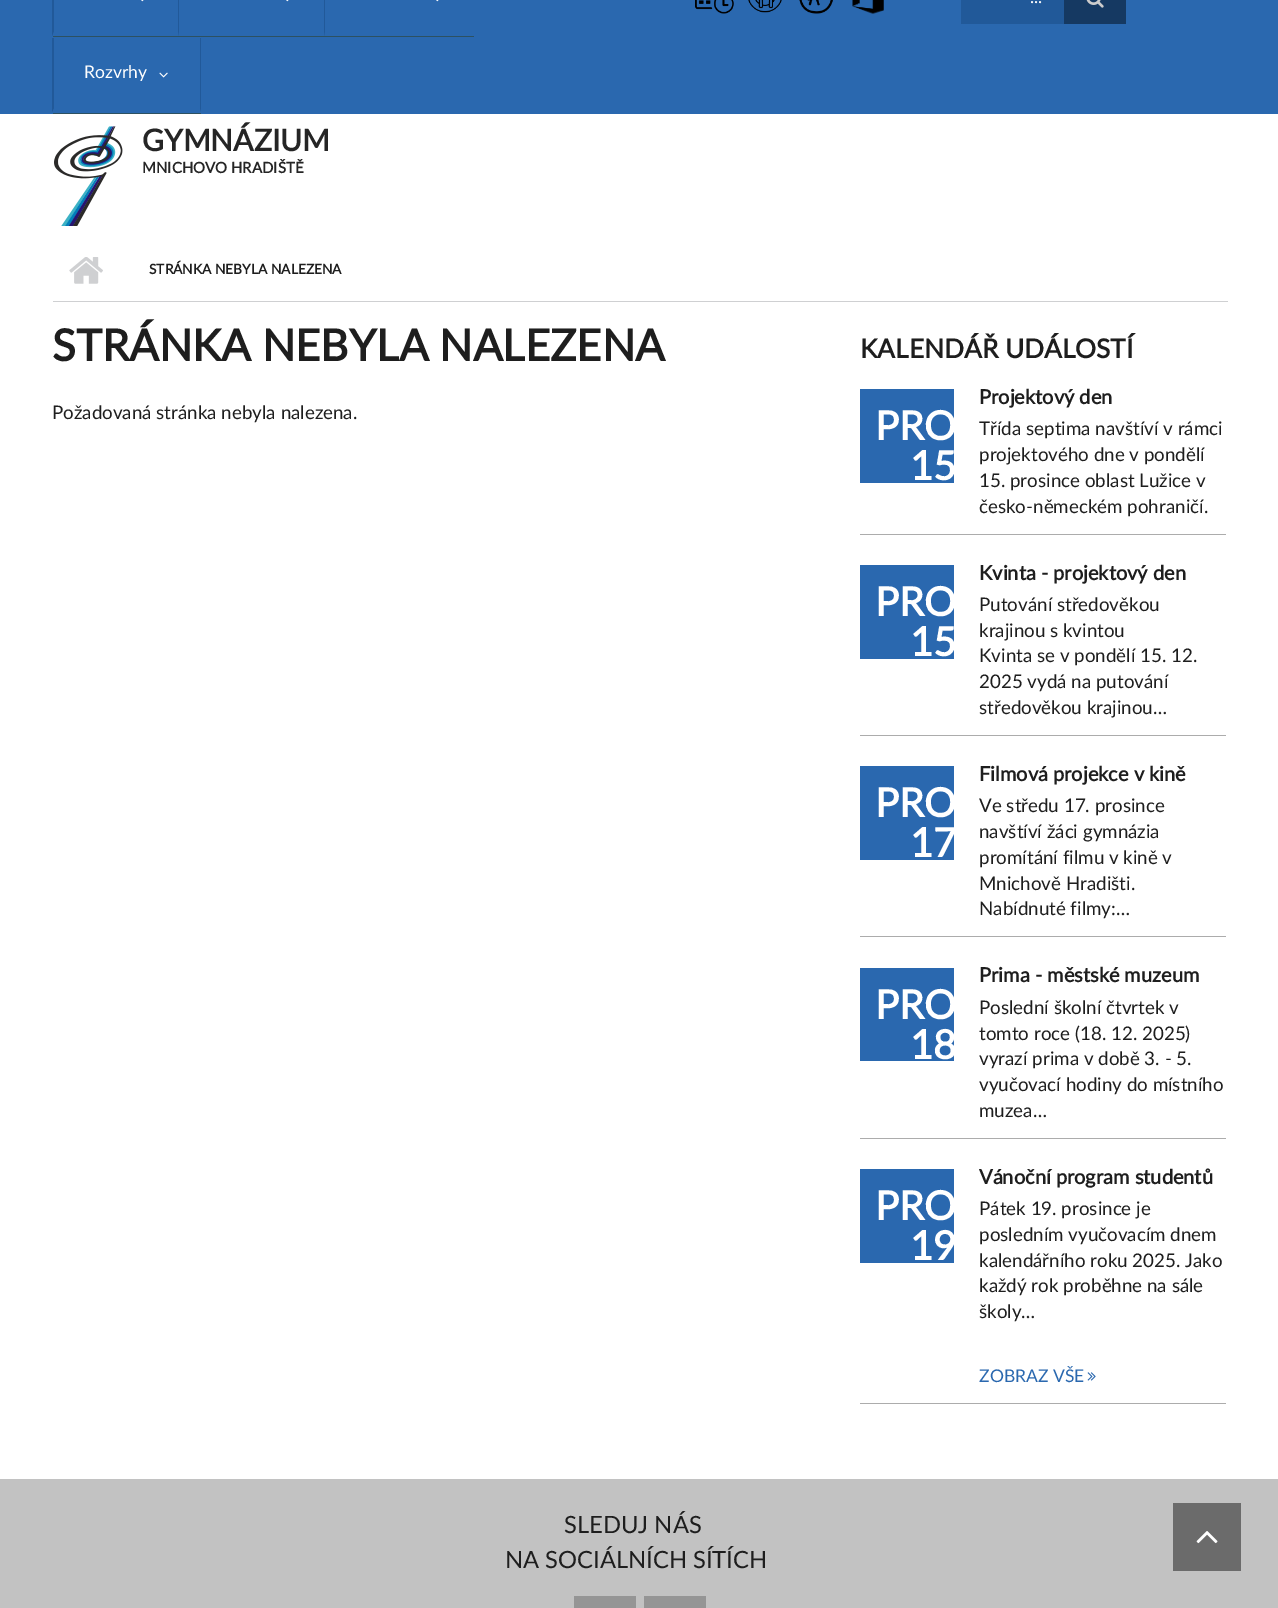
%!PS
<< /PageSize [1278 1608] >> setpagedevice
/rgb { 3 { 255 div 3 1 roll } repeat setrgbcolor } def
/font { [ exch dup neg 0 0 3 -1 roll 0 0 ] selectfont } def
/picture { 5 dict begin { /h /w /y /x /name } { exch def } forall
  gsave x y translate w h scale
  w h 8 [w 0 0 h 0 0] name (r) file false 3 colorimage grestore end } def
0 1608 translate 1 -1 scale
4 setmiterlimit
255 255 255 rgb
0 0 1278 1608 rectfill
42 104 175 rgb
0 0 1278 114 rectfill
(img/1.rgb) 695 0 39 14 picture
(img/2.rgb) 748 0 34 13 picture
(img/3.rgb) 799 0 34 14 picture
(img/4.rgb) 852 0 32 14 picture
33 89 153 rgb
961 0 103 24 rectfill
21 57 98 rgb
1064 0 62 24 rectfill
(img/5.rgb) 1086 0 18 8 picture
45 81 97 rgb
53 36 421 1 rectfill
33 89 153 rgb
52 36 moveto 52 -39 lineto 54 -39 lineto 54 31 lineto closepath fill
(img/6.rgb) 141 0 3 2 picture
178 36 moveto 178 -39 lineto 179 -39 lineto 179 31 lineto closepath fill
(img/6.rgb) 286 0 3 2 picture
324 36 moveto 324 -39 lineto 325 -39 lineto 325 31 lineto closepath fill
(img/6.rgb) 436 0 3 2 picture
45 81 97 rgb
53 113 148 1 rectfill
33 89 153 rgb
201 38 moveto 201 112 lineto 200 108 lineto 200 38 lineto closepath fill
52 112 moveto 52 38 lineto 54 38 lineto 54 108 lineto closepath fill
(img/7.rgb) 159 72 9 6 picture
(img/8.rgb) 54 126 69 100 picture
207 208 210 rgb
53 301 1175 1 rectfill
(img/9.rgb) 69 257 34 27 picture
[
  [860 1403 366 1 172 172 172]
  [860 534 366 1 172 172 172]
  [860 389 94 94 42 104 175]
  [860 735 366 1 172 172 172]
  [860 565 94 94 42 104 175]
  [860 936 366 1 172 172 172]
  [860 766 94 94 42 104 175]
  [860 1138 366 1 172 172 172]
  [860 968 94 93 42 104 175]
  [860 1169 94 94 42 104 175]
] { aload pop rgb rectfill } forall
(img/10.rgb) 1087 1372 9 9 picture
[
  [0 1479 1278 129 194 194 194]
  [574 1596 62 12 149 149 149]
  [644 1596 62 12 149 149 149]
  [1173 1503 68 68 107 107 107]
] { aload pop rgb rectfill } forall
(img/11.rgb) 1196 1531 22 13 picture
/Lato-Regular 17.5 font
255 255 255 rgb
1030 3 moveto (...) show
84 78 moveto (Rozvrhy) show
/Lato-Bold 30 font
37 37 37 rgb
142 151 moveto (GYMNÁZIUM) show
/Lato-Bold 15 font
142 173 moveto (MNICHOVO HRADIŠTĚ) show
/Lato-Bold 13.75 font
30 30 30 rgb
149 274 moveto (STRÁNKA NEBYLA NALEZENA) show
/Lato-Bold 43.75 font
52 361 moveto (STRÁNKA NEBYLA NALEZENA) show
/Lato-Regular 18.75 font
52 419 moveto (Požadovaná stránka nebyla nalezena.) show
/Lato-Bold 26.25 font
860 358 moveto (KALENDÁŘ UDÁLOSTÍ) show
/Lato-Bold 20 font
979 404 moveto (Projektový den) show
/Lato-Bold 40 font
255 255 255 rgb
875 440 moveto (PRO) show
910 480 moveto (15) show
/Lato-Regular 18.75 font
30 30 30 rgb
[
  [(Třída septima navštíví v rámci) 979 435]
  [(projektového dne v pondělí) 979 461]
  [(15. prosince oblast Lužice v) 979 487]
  [(česko-německém pohraničí.) 979 513]
] { aload pop moveto show } forall
/Lato-Bold 20 font
979 580 moveto (Kvinta - projektový den) show
/Lato-Bold 40 font
255 255 255 rgb
875 616 moveto (PRO) show
910 656 moveto (15) show
/Lato-Regular 18.75 font
30 30 30 rgb
[
  [(Putování středověkou) 979 611]
  [(krajinou s kvintou) 979 637]
  [(Kvinta se v pondělí 15. 12.) 979 662]
  [(2025 vydá na putování) 979 688]
  [(středověkou krajinou…) 979 714]
] { aload pop moveto show } forall
/Lato-Bold 20 font
979 781 moveto (Filmová projekce v kině) show
/Lato-Bold 40 font
255 255 255 rgb
875 817 moveto (PRO) show
910 857 moveto (17) show
/Lato-Regular 18.75 font
30 30 30 rgb
[
  [(Ve středu 17. prosince) 979 812]
  [(navštíví žáci gymnázia) 979 838]
  [(promítání filmu v kině v) 979 864]
  [(Mnichově Hradišti.) 979 890]
  [(Nabídnuté filmy:…) 979 915]
] { aload pop moveto show } forall
/Lato-Bold 20 font
979 982 moveto (Prima - městské muzeum) show
/Lato-Bold 40 font
255 255 255 rgb
875 1019 moveto (PRO) show
910 1059 moveto (18) show
/Lato-Regular 18.75 font
30 30 30 rgb
[
  [(Poslední školní čtvrtek v) 979 1014]
  [(tomto roce \(18. 12. 2025\)) 979 1040]
  [(vyrazí prima v době 3. - 5.) 979 1065]
  [(vyučovací hodiny do místního) 979 1091]
  [(muzea…) 979 1117]
] { aload pop moveto show } forall
/Lato-Bold 20 font
979 1184 moveto (Vánoční program studentů) show
/Lato-Bold 40 font
255 255 255 rgb
875 1220 moveto (PRO) show
910 1260 moveto (19) show
/Lato-Regular 18.75 font
30 30 30 rgb
[
  [(Pátek 19. prosince je) 979 1215]
  [(posledním vyučovacím dnem) 979 1241]
  [(kalendářního roku 2025. Jako) 979 1267]
  [(každý rok proběhne na sále) 979 1292]
  [(školy…) 979 1318]
] { aload pop moveto show } forall
/Lato-Regular 17.5 font
42 104 175 rgb
979 1382 moveto (ZOBRAZ VŠE) show
/Lato-Regular 23.75 font
30 30 30 rgb
564 1533 moveto (SLEDUJ NÁS) show
505 1568 moveto (NA SOCIÁLNÍCH SÍTÍCH) show
showpage
